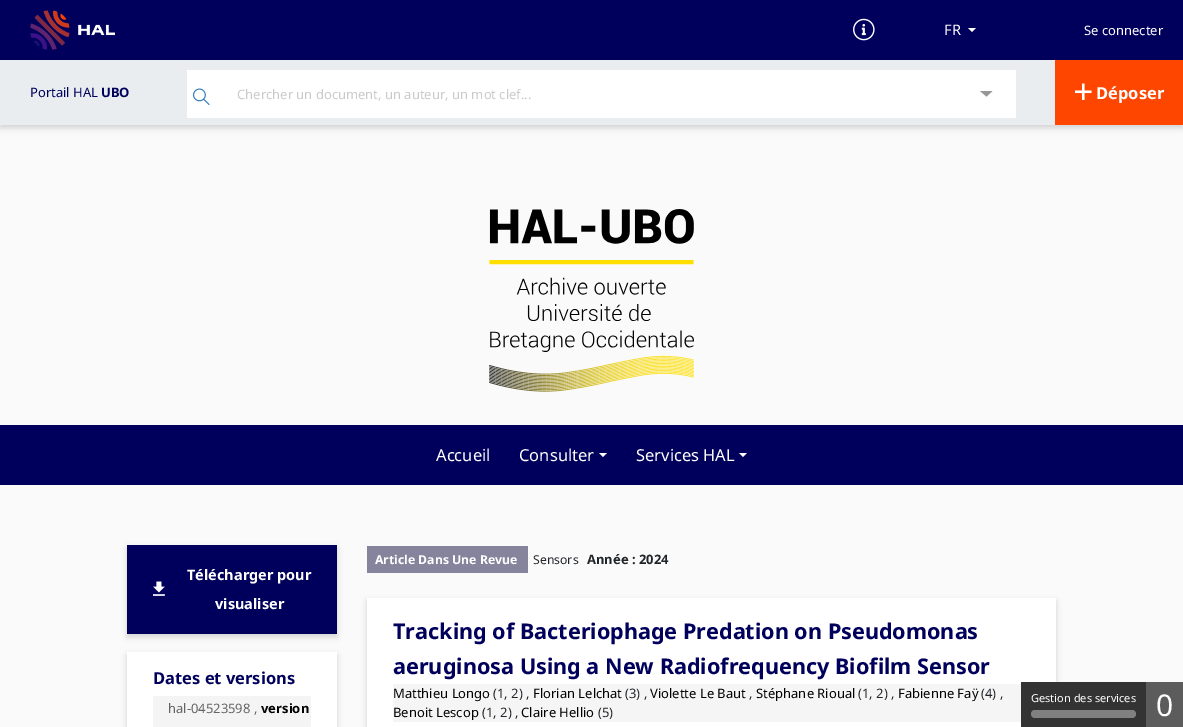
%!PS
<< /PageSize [1183 727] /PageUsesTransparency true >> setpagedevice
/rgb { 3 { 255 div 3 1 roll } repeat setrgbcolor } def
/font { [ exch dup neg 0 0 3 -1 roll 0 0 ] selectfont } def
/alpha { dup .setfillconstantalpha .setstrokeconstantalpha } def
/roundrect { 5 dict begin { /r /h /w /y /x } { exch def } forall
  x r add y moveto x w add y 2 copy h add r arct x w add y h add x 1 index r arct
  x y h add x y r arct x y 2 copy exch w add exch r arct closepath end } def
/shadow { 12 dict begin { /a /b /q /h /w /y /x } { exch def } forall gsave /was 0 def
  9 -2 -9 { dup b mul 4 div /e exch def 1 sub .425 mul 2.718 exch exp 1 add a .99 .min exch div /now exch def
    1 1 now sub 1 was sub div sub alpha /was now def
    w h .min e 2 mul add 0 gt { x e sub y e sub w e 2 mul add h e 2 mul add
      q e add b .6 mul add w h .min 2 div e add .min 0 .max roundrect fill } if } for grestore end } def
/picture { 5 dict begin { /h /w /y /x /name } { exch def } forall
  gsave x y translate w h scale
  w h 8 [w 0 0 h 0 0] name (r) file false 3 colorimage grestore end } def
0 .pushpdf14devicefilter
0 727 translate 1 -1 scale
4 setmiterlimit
250 250 250 rgb
0 0 1183 727 rectfill
0 0 92 rgb
0 0 1183 60 rectfill
(img/1.rgb) 30 10 40 40 picture
(img/2.rgb) 78 24 37 12 picture
(img/3.rgb) 853 18 22 23 picture
255 255 255 rgb
968 28 moveto 976 28 lineto 972 32 lineto closepath fill
0 0 0 rgb
0 63 1183 65 0 3 0.16 shadow
233 237 240 rgb
0 60 1055 65 rectfill
255 255 255 rgb
187 70 829 48 rectfill
(img/4.rgb) 193 88 17 17 picture
151 151 151 rgb
990.5 91 moveto 980 91 lineto 986.5 96.5 lineto 992.5 91 lineto closepath fill
255 70 0 rgb
1055 60 128 65 rectfill
(img/5.rgb) 1075 83 17 18 picture
(img/6.rgb) 489 209 205 183 picture
0 0 92 rgb
0 425 1183 60 rectfill
255 255 255 rgb
599 453 moveto 607 453 lineto 603 457 lineto closepath fill
739 453 moveto 747 453 lineto 743 457 lineto closepath fill
0 0 0 rgb
127 548 210 89 0 3 0.16 shadow
0 0 92 rgb
127 545 210 89 rectfill
(img/7.rgb) 153 581 12 15 picture
0 0 0 rgb
127 655 210 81 0 3 0.16 shadow
[
  [127 652 210 75 255 255 255]
  [153 696 158 31 244 244 244]
  [367 546 161 27 134 131 157]
] { aload pop rgb rectfill } forall
0 0 0 rgb
367 601 689 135 0 3 0.16 shadow
[
  [367 598 689 129 255 255 255]
  [393 684 628 38 245 245 245]
  [1021 682 125 45 51 51 51]
] { aload pop rgb rectfill } forall
128 128 128 rgb
1031 710 105 8 4 roundrect fill
92 92 92 rgb
1146 682 37 45 rectfill
/NotoSans-Regular 14.5 font
255 255 255 rgb
944 35 moveto (FR) show
/NotoSans-Regular 13 font
1084 35 moveto (Se connecter) show
0 0 92 rgb
30 97 moveto (Portail HAL) show
/NotoSans-Bold 13 font
101 97 moveto (UBO) show
/NotoSans-Regular 13 font
202 202 202 rgb
237 99 moveto (Chercher un document, un auteur, un mot clef...) show
/NotoSans-Bold 16.5 font
255 255 255 rgb
1096 99 moveto (Déposer) show
/NotoSans-Regular 16.5 font
[
  [(Accueil) 436 461]
  [(Consulter) 519 461]
  [(Services HAL) 636 461]
] { aload pop moveto show } forall
/NotoSans-Bold 14.5 font
187 580 moveto (Télécharger pour) show
215 609 moveto (visualiser) show
/NotoSans-Bold 16.5 font
0 0 92 rgb
153 684 moveto (Dates et versions) show
/NotoSans-Regular 13 font
100 100 100 rgb
168 713 moveto (hal-04523598 ,) show
/NotoSans-Bold 13 font
0 0 0 rgb
261 713 moveto (version) show
/NotoSans-Bold 12.25 font
255 255 255 rgb
375 564 moveto (Article Dans Une Revue) show
/NotoSans-Regular 12.25 font
33 37 41 rgb
533 564 moveto (Sensors) show
/NotoSans-Bold 13 font
587 564 moveto (Année : 2024) show
/NotoSans-Bold 21.6 font
0 0 92 rgb
393 639 moveto (Tracking of Bacteriophage Predation on Pseudomonas) show
393 674 moveto (aeruginosa Using a New Radiofrequency Biofilm Sensor) show
/NotoSans-Regular 13 font
0 0 0 rgb
393 698 moveto (Matthieu Longo) show
33 37 41 rgb
493 698 moveto (\(1, 2\) ,) show
0 0 0 rgb
533 698 moveto (Florian Lelchat) show
33 37 41 rgb
625 698 moveto (\(3\) ,) show
0 0 0 rgb
650 698 moveto (Violette Le Baut) show
33 37 41 rgb
749 698 moveto (,) show
0 0 0 rgb
756 698 moveto (Stéphane Rioual) show
33 37 41 rgb
858 698 moveto (\(1, 2\) ,) show
0 0 0 rgb
898 698 moveto (Fabienne Faÿ) show
33 37 41 rgb
981 698 moveto (\(4\) ,) show
0 0 0 rgb
393 717 moveto (Benoit Lescop) show
33 37 41 rgb
482 717 moveto (\(1, 2\) ,) show
0 0 0 rgb
521 717 moveto (Claire Hellio) show
33 37 41 rgb
598 717 moveto (\(5\)) show
/NotoSans-Regular 11 font
255 255 255 rgb
1031 702 moveto (Gestion des services) show
/NotoSans-Regular 30 font
1156 716 moveto (0) show
.poppdf14devicefilter showpage
